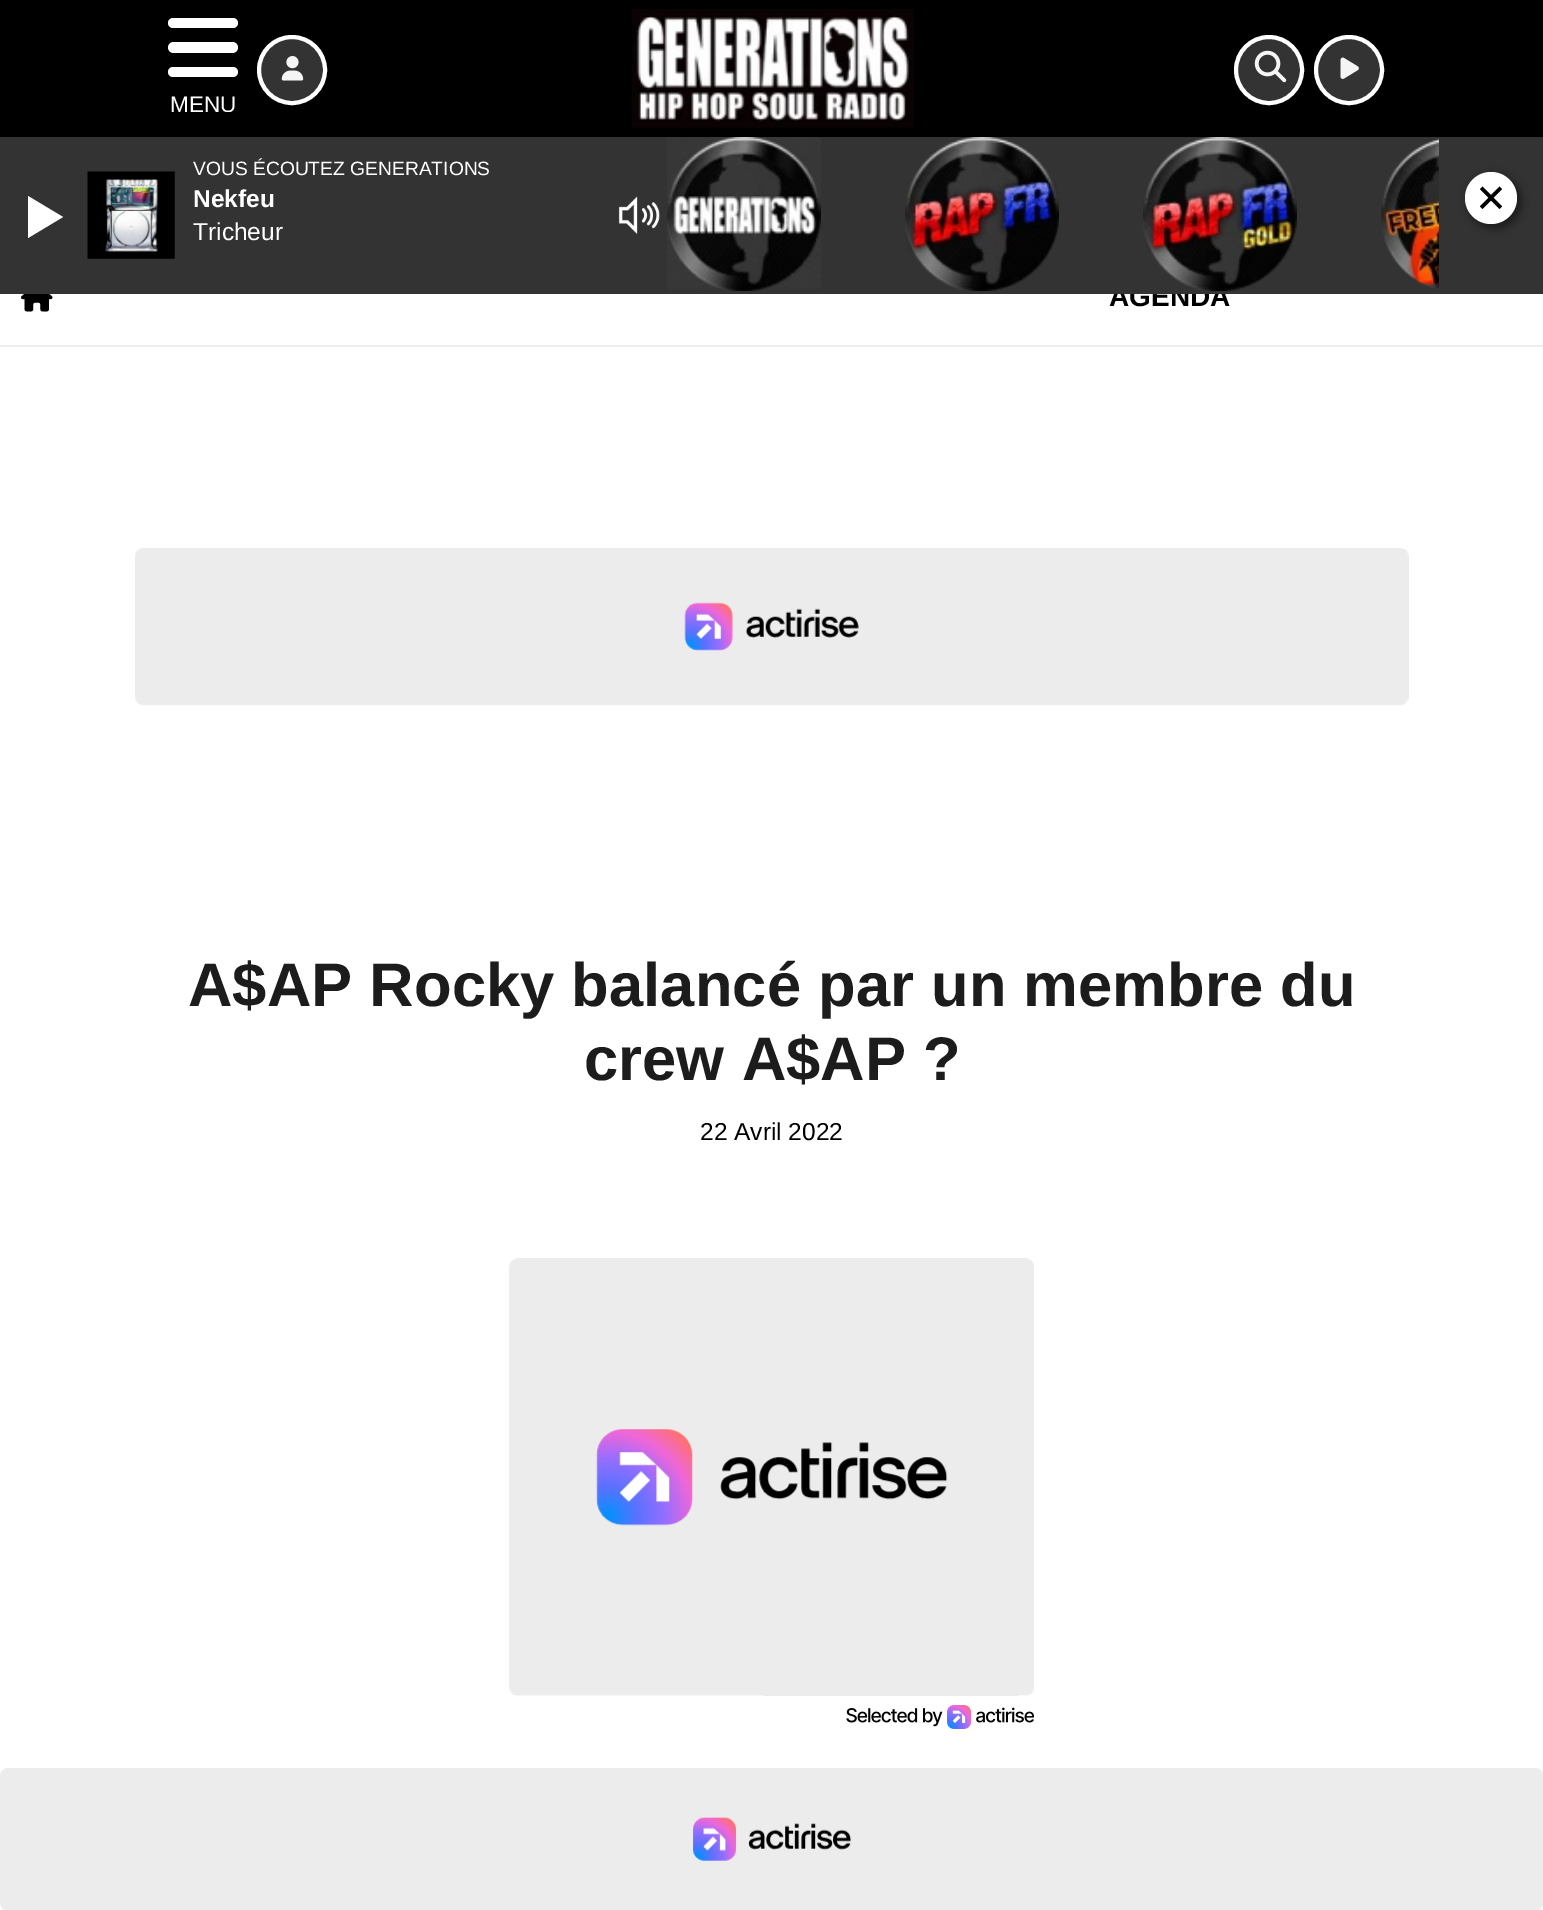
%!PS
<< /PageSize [1543 1910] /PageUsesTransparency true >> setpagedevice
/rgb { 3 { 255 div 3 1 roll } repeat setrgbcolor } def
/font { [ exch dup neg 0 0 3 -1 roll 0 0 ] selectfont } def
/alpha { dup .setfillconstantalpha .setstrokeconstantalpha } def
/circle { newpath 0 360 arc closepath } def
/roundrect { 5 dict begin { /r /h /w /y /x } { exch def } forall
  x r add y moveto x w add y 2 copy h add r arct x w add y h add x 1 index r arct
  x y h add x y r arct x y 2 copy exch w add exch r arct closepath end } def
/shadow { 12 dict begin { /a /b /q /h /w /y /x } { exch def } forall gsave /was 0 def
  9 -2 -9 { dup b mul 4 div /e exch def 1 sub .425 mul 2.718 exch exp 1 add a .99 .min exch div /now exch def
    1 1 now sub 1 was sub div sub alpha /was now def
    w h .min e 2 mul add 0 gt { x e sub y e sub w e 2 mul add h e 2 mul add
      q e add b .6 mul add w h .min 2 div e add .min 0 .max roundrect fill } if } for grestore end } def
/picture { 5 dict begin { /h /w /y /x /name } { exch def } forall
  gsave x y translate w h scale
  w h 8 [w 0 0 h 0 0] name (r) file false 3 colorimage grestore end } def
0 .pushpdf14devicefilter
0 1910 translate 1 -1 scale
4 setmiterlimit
255 255 255 rgb
0 0 1543 1910 rectfill
0 0 0 rgb
0 0 1543 137 rectfill
255 255 255 rgb
168 18 70 10 5 roundrect fill
168 42 70 11 5.5 roundrect fill
168 67 70 10 5 roundrect fill
51 51 51 rgb
292 70 33 circle gsave fill grestore
255 255 255 rgb
4 setlinewidth
stroke
(img/1.rgb) 281 56 23 25 picture
(img/2.rgb) 631 9 283 119 picture
51 51 51 rgb
1269 70 33 circle gsave fill grestore
255 255 255 rgb
stroke
(img/3.rgb) 1254 50 33 33 picture
51 51 51 rgb
1349 70 33 circle gsave fill grestore
255 255 255 rgb
stroke
(img/4.rgb) 1340 57 19 22 picture
238 238 238 rgb
0 345 1543 2 rectfill
(img/5.rgb) 21 294 32 18 picture
(img/6.rgb) 135 548 1274 158 picture
(img/7.rgb) 509 1258 525 438 picture
(img/9.rgb) 846 1707 188 20 picture
(img/8.rgb) 947 1705 24 24 picture
(img/16.rgb) 0 1768 1543 142 picture
gsave
168 18 70 94 rectclip
/LiberationSans-Regular 22.5 font
255 255 255 rgb
170 112 moveto (MENU) show
grestore
/LiberationSans-Bold 28 font
0 0 0 rgb
1109 306 moveto (AGENDA) show
/LiberationSans-Bold 61.6 font
28 28 28 rgb
188 1006 moveto (A$AP Rocky balancé par un membre du) show
584 1080 moveto (crew A$AP ?) show
/LiberationSans-Regular 24.5 font
0 0 0 rgb
700 1140 moveto (22 Avril 2022) show
51 51 51 rgb
0 137 1543 157 rectfill
/LiberationSans-Regular 19.25 font
255 255 255 rgb
193 175 moveto (VOUS ÉCOUTEZ GENERATIONS) show
(img/10.rgb) 87 171 88 88 picture
/LiberationSans-Bold 24.5 font
193 207 moveto (Nekfeu) show
/LiberationSans-Regular 24.5 font
193 240 moveto (Tricheur) show
28 238 moveto 28 196 lineto 63 217 lineto closepath fill
(img/11.rgb) 618 196 42 38 picture
(img/12.rgb) 667 137 154 154 picture
(img/13.rgb) 905 137 154 154 picture
(img/14.rgb) 1143 137 154 154 picture
(img/15.rgb) 1381 138 58 151 picture
0 0 0 rgb
1468 175 53 53 26.5 4.5 0.5 shadow
255 255 255 rgb
1491 198 26 circle fill
0 0 0 rgb
1482.5 186.5 moveto 1502 206.5 lineto 1499.5 209 lineto 1480 189 lineto closepath fill
1480 206.5 moveto 1499.5 186.5 lineto 1502 189 lineto 1482.5 209 lineto closepath fill
.poppdf14devicefilter showpage
